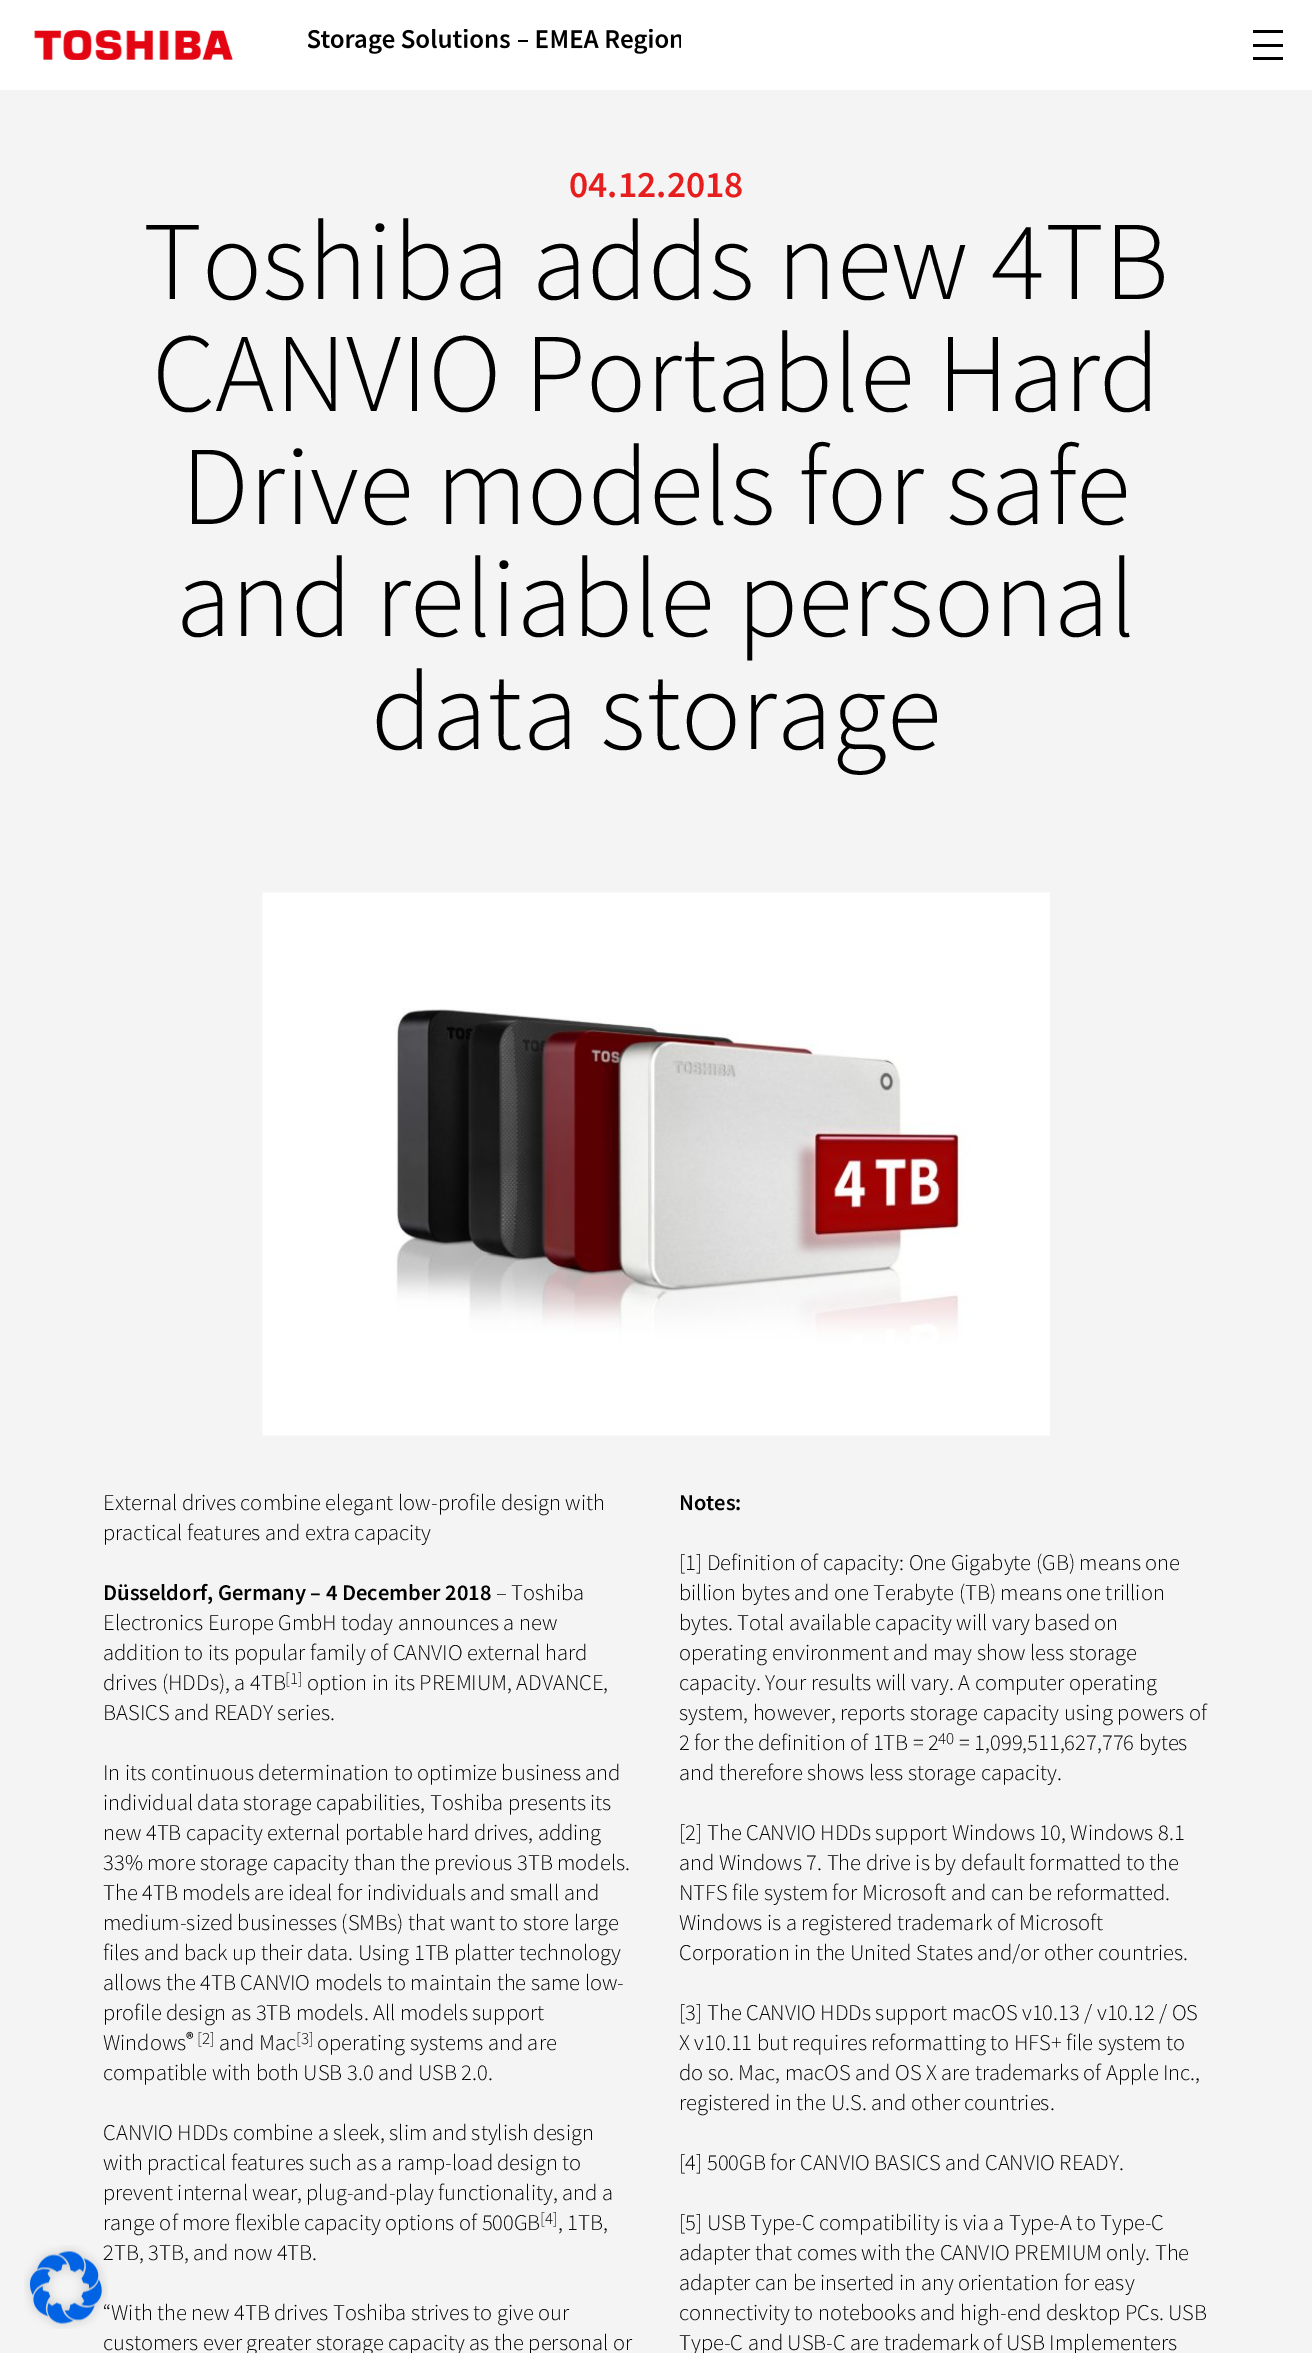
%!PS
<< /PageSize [1312 2353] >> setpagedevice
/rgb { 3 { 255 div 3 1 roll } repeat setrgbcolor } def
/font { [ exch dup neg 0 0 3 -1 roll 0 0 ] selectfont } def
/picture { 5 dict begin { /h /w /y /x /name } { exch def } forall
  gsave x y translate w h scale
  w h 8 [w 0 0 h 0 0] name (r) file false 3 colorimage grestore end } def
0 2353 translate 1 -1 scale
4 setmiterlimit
255 255 255 rgb
0 0 1312 2353 rectfill
(img/2.rgb) 34 30 199 30 picture
(img/3.rgb) 308 29 373 25 picture
[
  [1253 30 30 3 0 0 0]
  [1253 44 30 3 0 0 0]
  [1253 57 30 3 0 0 0]
  [0 90 1312 2263 244 244 244]
] { aload pop rgb rectfill } forall
(img/4.rgb) 262 892 788 544 picture
/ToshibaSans-Medium 37.5 font
230 30 30 rgb
569 197 moveto (04.12.2018) show
/ToshibaSans-Light 112.5 font
0 0 0 rgb
[
  [(Toshiba adds new 4TB) 143 299]
  [(CANVIO Portable Hard) 152 411]
  [(Drive models for safe) 181 524]
  [(and reliable personal) 176 636]
  [(data storage) 371 749]
] { aload pop moveto show } forall
/ToshibaSans-Light 22.5 font
103 1510 moveto (External drives combine elegant low-profile design with) show
103 1540 moveto (practical features and extra capacity) show
/ToshibaSans-Medium 22.5 font
103 1600 moveto (Düsseldorf, Germany – 4 December 2018) show
/ToshibaSans-Light 22.5 font
[
  [(– Toshiba) 496 1600]
  [(Electronics Europe GmbH today announces a new) 103 1630]
  [(addition to its popular family of CANVIO external hard) 103 1660]
  [(drives \(HDDs\), a 4TB) 103 1690]
] { aload pop moveto show } forall
/ToshibaSans-Light 17 font
285 1684 moveto ([1]) show
/ToshibaSans-Light 22.5 font
[
  [(option in its PREMIUM, ADVANCE,) 307 1690]
  [(BASICS and READY series.) 103 1720]
  [(In its continuous determination to optimize business and) 103 1780]
  [(individual data storage capabilities, Toshiba presents its) 103 1810]
  [(new 4TB capacity external portable hard drives, adding) 103 1840]
  [(33% more storage capacity than the previous 3TB models.) 103 1870]
  [(The 4TB models are ideal for individuals and small and) 103 1900]
  [(medium-sized businesses \(SMBs\) that want to store large) 103 1930]
  [(files and back up their data. Using 1TB platter technology) 103 1960]
  [(allows the 4TB CANVIO models to maintain the same low-) 103 1990]
  [(profile design as 3TB models. All models support) 103 2020]
  [(Windows) 103 2050]
] { aload pop moveto show } forall
/ToshibaSans-Medium 17 font
186 2044 moveto (®) show
/ToshibaSans-Light 17 font
197 2044 moveto ([2]) show
/ToshibaSans-Light 22.5 font
219 2050 moveto (and Mac) show
/ToshibaSans-Light 17 font
296 2044 moveto ([3]) show
/ToshibaSans-Light 22.5 font
[
  [(operating systems and are) 317 2050]
  [(compatible with both USB 3.0 and USB 2.0.) 103 2080]
  [(CANVIO HDDs combine a sleek, slim and stylish design) 103 2140]
  [(with practical features such as a ramp-load design to) 103 2170]
  [(prevent internal wear, plug-and-play functionality, and a) 103 2200]
  [(range of more flexible capacity options of 500GB) 103 2230]
] { aload pop moveto show } forall
/ToshibaSans-Light 17 font
540 2224 moveto ([4]) show
/ToshibaSans-Light 22.5 font
[
  [(, 1TB,) 558 2230]
  [(2TB, 3TB, and now 4TB.) 103 2260]
  [(“With the new 4TB drives Toshiba strives to give our) 103 2320]
] { aload pop moveto show } forall
(img/1.rgb) 24 2245 84 84 picture
103 2350 moveto (customers ever greater storage capacity as the personal or) show
/ToshibaSans-Medium 22.5 font
679 1510 moveto (Notes:) show
/ToshibaSans-Light 22.5 font
[
  [([1] Definition of capacity: One Gigabyte \(GB\) means one) 679 1570]
  [(billion bytes and one Terabyte \(TB\) means one trillion) 679 1600]
  [(bytes. Total available capacity will vary based on) 679 1630]
  [(operating environment and may show less storage) 679 1660]
  [(capacity. Your results will vary. A computer operating) 679 1690]
  [(system, however, reports storage capacity using powers of) 679 1720]
  [(2 for the definition of 1TB = 2) 679 1750]
] { aload pop moveto show } forall
/ToshibaSans-Light 17 font
938 1744 moveto (40) show
/ToshibaSans-Light 22.5 font
[
  [(= 1,099,511,627,776 bytes) 959 1750]
  [(and therefore shows less storage capacity.) 679 1780]
  [([2] The CANVIO HDDs support Windows 10, Windows 8.1) 679 1840]
  [(and Windows 7. The drive is by default formatted to the) 679 1870]
  [(NTFS file system for Microsoft and can be reformatted.) 679 1900]
  [(Windows is a registered trademark of Microsoft) 679 1930]
  [(Corporation in the United States and/or other countries.) 679 1960]
  [([3] The CANVIO HDDs support macOS v10.13 / v10.12 / OS) 679 2020]
  [(X v10.11 but requires reformatting to HFS+ file system to) 679 2050]
  [(do so. Mac, macOS and OS X are trademarks of Apple Inc.,) 679 2080]
  [(registered in the U.S. and other countries.) 679 2110]
  [([4] 500GB for CANVIO BASICS and CANVIO READY.) 679 2170]
  [([5] USB Type-C compatibility is via a Type-A to Type-C) 679 2230]
  [(adapter that comes with the CANVIO PREMIUM only. The) 679 2260]
  [(adapter can be inserted in any orientation for easy) 679 2290]
  [(connectivity to notebooks and high-end desktop PCs. USB) 679 2320]
  [(Type-C and USB-C are trademark of USB Implementers) 679 2350]
] { aload pop moveto show } forall
showpage
